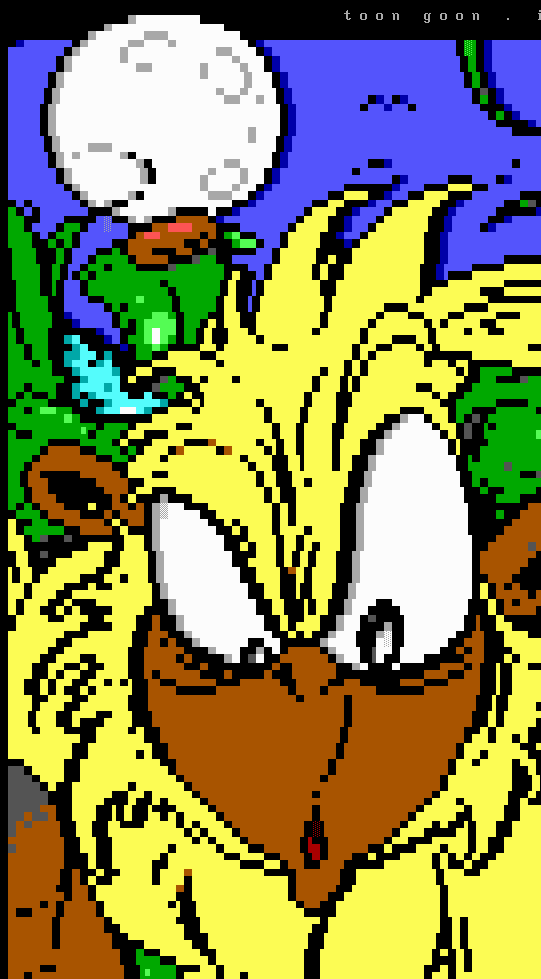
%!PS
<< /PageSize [541 979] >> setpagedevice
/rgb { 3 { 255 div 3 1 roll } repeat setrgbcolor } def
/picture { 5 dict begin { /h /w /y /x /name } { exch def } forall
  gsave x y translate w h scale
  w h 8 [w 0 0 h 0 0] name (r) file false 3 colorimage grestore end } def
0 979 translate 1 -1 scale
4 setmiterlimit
0 0 0 rgb
0 0 541 979 rectfill
(img/1.rgb) 8 10 533 969 picture
showpage
